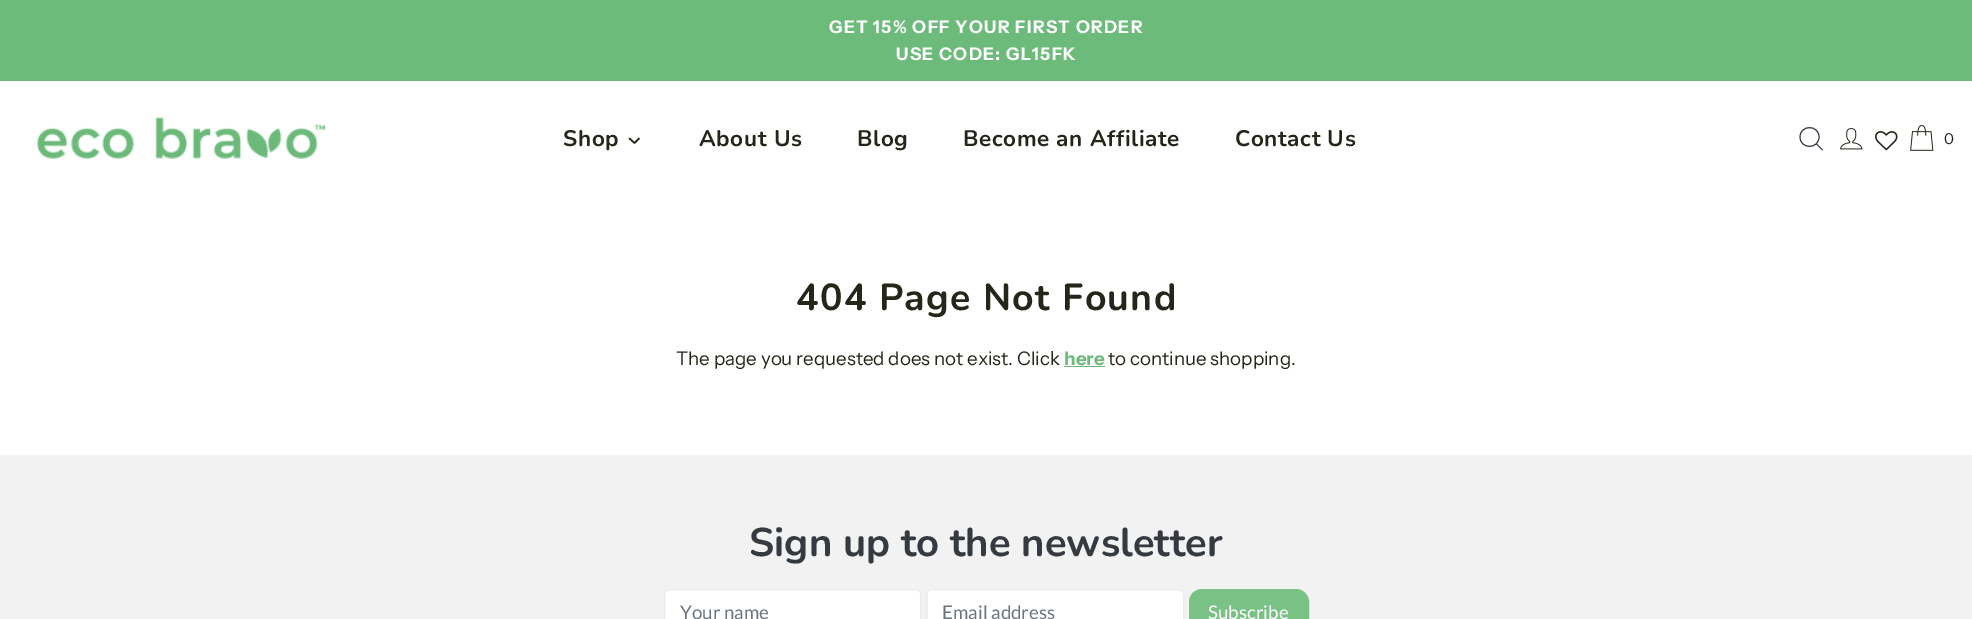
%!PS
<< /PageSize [1972 619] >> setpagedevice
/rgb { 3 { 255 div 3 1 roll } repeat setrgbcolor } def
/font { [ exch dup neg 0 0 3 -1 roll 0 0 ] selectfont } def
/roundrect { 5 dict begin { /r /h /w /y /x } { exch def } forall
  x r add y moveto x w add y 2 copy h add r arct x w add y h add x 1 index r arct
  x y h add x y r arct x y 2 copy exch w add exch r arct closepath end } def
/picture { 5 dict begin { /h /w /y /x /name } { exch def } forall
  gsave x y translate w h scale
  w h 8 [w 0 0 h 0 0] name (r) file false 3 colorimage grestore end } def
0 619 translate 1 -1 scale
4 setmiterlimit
255 255 255 rgb
0 0 1972 619 rectfill
109 187 122 rgb
0 0 1972 81 rectfill
(img/1.rgb) 37 117 288 42 picture
37 37 26 rgb
1.6 setlinewidth
1 setlinecap
1 setlinejoin
629.5 138.5 moveto 634.5 143 lineto 639 138.5 lineto stroke
54 58 68 rgb
1 setlinewidth
0 setlinecap
0 setlinejoin
1819 137 moveto 1819 149.5 1800 149.5 1800 137 curveto 1800 124.5 1819 124.5 1819 137 curveto closepath 1822.5 150 moveto 1816.5 144 lineto stroke
(img/2.rgb) 1840 128 23 22 picture
(img/3.rgb) 1875 131 23 20 picture
(img/4.rgb) 1910 125 24 26 picture
109 187 122 rgb
1064 366 41 1 rectfill
242 242 242 rgb
0 455 1972 164 rectfill
255 255 255 rgb
665 590 255 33 4 roundrect fill
233 236 239 rgb
664.5 589.5 256 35 4.5 roundrect stroke
255 255 255 rgb
928 590 255 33 4 roundrect fill
233 236 239 rgb
926.5 589.5 257 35 4.5 roundrect stroke
122 193 134 rgb
1189.5 589.5 119 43 12.5 roundrect gsave fill grestore
stroke
/InstrumentSans-Bold 17.5 font
255 255 255 rgb
829 33 moveto 1.25 0 (GET 15% OFF YOUR FIRST ORDER) ashow
896 60 moveto 1.25 0 (USE CODE: GL15FK) ashow
/Nunito-Bold 22.5 font
37 37 26 rgb
563 146 moveto 0.6 0 (Shop) ashow
699 146 moveto 0.6 0 (About Us) ashow
857 146 moveto 0.6 0 (Blog) ashow
963 146 moveto 0.6 0 (Become an Affiliate) ashow
1235 146 moveto 0.6 0 (Contact Us) ashow
/InstrumentSans-Regular 15 font
1944 144 moveto (0) show
/Nunito-Bold 37.5 font
796 310 moveto 1.25 0 (404 Page Not Found) ashow
/InstrumentSans-Regular 18.75 font
676 365 moveto (The page you requested does not exist. Click) show
/InstrumentSans-Bold 18.75 font
109 187 122 rgb
1064 365 moveto (here) show
/InstrumentSans-Regular 18.75 font
37 37 26 rgb
1108 365 moveto (to continue shopping.) show
/Nunito-Bold 40 font
52 58 64 rgb
749 556 moveto (Sign up to the newsletter) show
/Lato-Regular 18.75 font
108 117 125 rgb
680 619 moveto (Your name) show
942 619 moveto (Email address) show
255 255 255 rgb
1208 619 moveto (Subscribe) show
showpage
